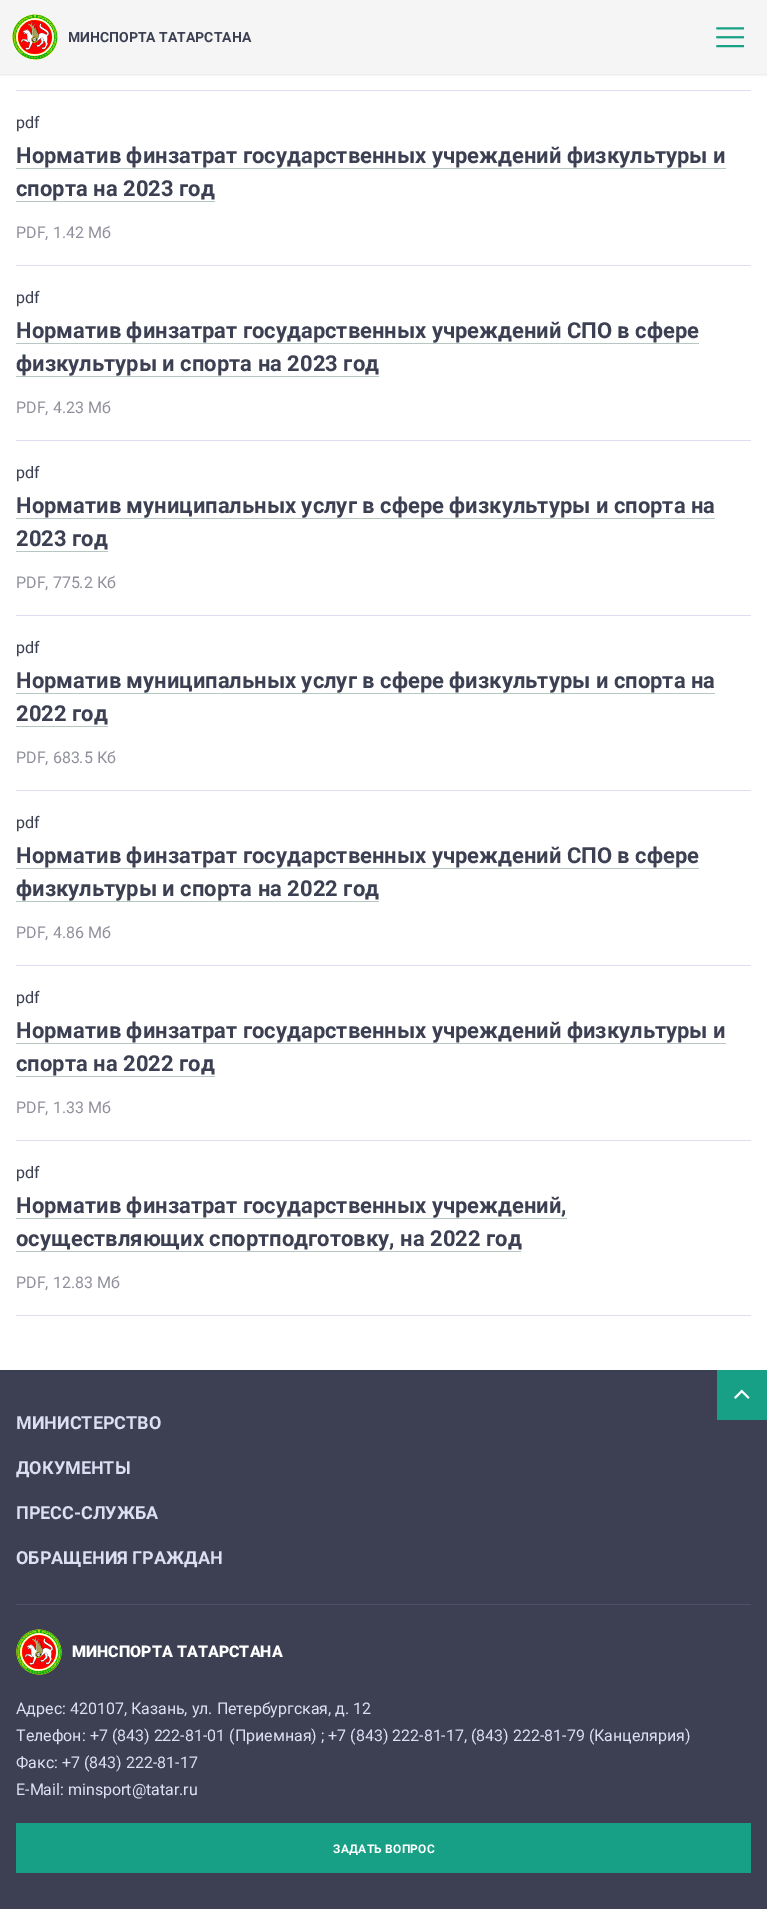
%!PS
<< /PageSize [767 1909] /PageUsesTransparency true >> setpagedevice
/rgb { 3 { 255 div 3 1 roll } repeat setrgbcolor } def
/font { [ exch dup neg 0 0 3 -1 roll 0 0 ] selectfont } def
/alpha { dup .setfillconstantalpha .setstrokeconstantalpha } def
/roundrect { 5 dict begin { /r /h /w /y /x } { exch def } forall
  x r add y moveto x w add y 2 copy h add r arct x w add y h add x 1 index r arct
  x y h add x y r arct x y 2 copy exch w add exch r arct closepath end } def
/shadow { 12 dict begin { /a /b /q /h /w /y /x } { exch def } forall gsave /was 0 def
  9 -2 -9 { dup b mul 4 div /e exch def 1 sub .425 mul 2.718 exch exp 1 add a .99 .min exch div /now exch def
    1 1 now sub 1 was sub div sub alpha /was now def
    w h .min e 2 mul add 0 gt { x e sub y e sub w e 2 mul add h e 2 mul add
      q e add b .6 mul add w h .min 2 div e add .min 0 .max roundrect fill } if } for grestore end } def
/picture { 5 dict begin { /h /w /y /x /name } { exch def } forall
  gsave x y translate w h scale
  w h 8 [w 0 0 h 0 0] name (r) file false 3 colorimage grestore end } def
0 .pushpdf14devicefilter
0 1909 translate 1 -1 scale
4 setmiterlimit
255 255 255 rgb
0 0 767 1909 rectfill
0 0 0 rgb
0 0 767 74 0 1.5 0.16 shadow
245 245 245 rgb
0 0 767 74 rectfill
(img/1.rgb) 12 14 46 46 picture
(img/2.rgb) 716 27 29 21 picture
[
  [16 90 735 1 222 222 243]
  [16 265 735 1 222 222 243]
  [16 168 710 1 182 198 193]
  [16 201 199 1 182 198 193]
  [16 440 735 1 222 222 243]
  [16 343 683 1 182 198 193]
  [16 376 363 1 182 198 193]
  [16 615 735 1 222 222 243]
  [16 518 699 1 182 198 193]
  [16 551 92 1 182 198 193]
  [16 790 735 1 222 222 243]
  [16 693 699 1 182 198 193]
  [16 726 92 1 182 198 193]
  [16 965 735 1 222 222 243]
  [16 868 683 1 182 198 193]
  [16 901 363 1 182 198 193]
  [16 1140 735 1 222 222 243]
  [16 1043 710 1 182 198 193]
  [16 1076 199 1 182 198 193]
  [16 1315 735 1 222 222 243]
  [16 1218 551 1 182 198 193]
  [16 1251 505 1 182 198 193]
  [0 1370 767 539 60 64 82]
  [717 1370 50 50 23 160 133]
] { aload pop rgb rectfill } forall
(img/3.rgb) 734 1389 16 10 picture
78 82 105 rgb
16 1604 735 1 rectfill
(img/4.rgb) 16 1629 46 46 picture
23 160 133 rgb
16 1823 735 50 rectfill
/Roboto-Bold 14 font
60 64 82 rgb
68 42 moveto (МИНСПОРТА ТАТАРСТАНА) show
/Roboto-Regular 16 font
16 128 moveto (pdf) show
/Roboto-Bold 22 font
16 163 moveto (Норматив финзатрат государственных учреждений физкультуры и) show
16 196 moveto (спорта на 2023 год) show
/Roboto-Regular 16 font
143 144 155 rgb
16 238 moveto (PDF, 1.42 Мб) show
60 64 82 rgb
16 303 moveto (pdf) show
/Roboto-Bold 22 font
16 338 moveto (Норматив финзатрат государственных учреждений СПО в сфере) show
16 371 moveto (физкультуры и спорта на 2023 год) show
/Roboto-Regular 16 font
143 144 155 rgb
16 413 moveto (PDF, 4.23 Мб) show
60 64 82 rgb
16 478 moveto (pdf) show
/Roboto-Bold 22 font
16 513 moveto (Норматив муниципальных услуг в сфере физкультуры и спорта на) show
16 546 moveto (2023 год) show
/Roboto-Regular 16 font
143 144 155 rgb
16 588 moveto (PDF, 775.2 Кб) show
60 64 82 rgb
16 653 moveto (pdf) show
/Roboto-Bold 22 font
16 688 moveto (Норматив муниципальных услуг в сфере физкультуры и спорта на) show
16 721 moveto (2022 год) show
/Roboto-Regular 16 font
143 144 155 rgb
16 763 moveto (PDF, 683.5 Кб) show
60 64 82 rgb
16 828 moveto (pdf) show
/Roboto-Bold 22 font
16 863 moveto (Норматив финзатрат государственных учреждений СПО в сфере) show
16 896 moveto (физкультуры и спорта на 2022 год) show
/Roboto-Regular 16 font
143 144 155 rgb
16 938 moveto (PDF, 4.86 Мб) show
60 64 82 rgb
16 1003 moveto (pdf) show
/Roboto-Bold 22 font
16 1038 moveto (Норматив финзатрат государственных учреждений физкультуры и) show
16 1071 moveto (спорта на 2022 год) show
/Roboto-Regular 16 font
143 144 155 rgb
16 1113 moveto (PDF, 1.33 Мб) show
60 64 82 rgb
16 1178 moveto (pdf) show
/Roboto-Bold 22 font
16 1213 moveto (Норматив финзатрат государственных учреждений,) show
16 1246 moveto (осуществляющих спортподготовку, на 2022 год) show
/Roboto-Regular 16 font
143 144 155 rgb
16 1288 moveto (PDF, 12.83 Мб) show
/Roboto-Bold 18 font
222 222 243 rgb
[
  [(МИНИСТЕРСТВО) 16 1429]
  [(ДОКУМЕНТЫ) 16 1474]
  [(ПРЕСС-СЛУЖБА) 16 1519]
  [(ОБРАЩЕНИЯ ГРАЖДАН) 16 1564]
] { aload pop moveto show } forall
/Roboto-Black 16 font
255 255 255 rgb
72 1657 moveto (МИНСПОРТА ТАТАРСТАНА) show
/Roboto-Regular 16 font
222 222 243 rgb
[
  [(Адрес: 420107, Казань, ул. Петербургская, д. 12) 16 1714]
  [(Телефон: +7 \(843\) 222-81-01 \(Приемная\) ; +7 \(843\) 222-81-17, \(843\) 222-81-79 \(Канцелярия\)) 16 1741]
  [(Факс: +7 \(843\) 222-81-17) 16 1768]
  [(E-Mail: minsport@tatar.ru) 16 1795]
] { aload pop moveto show } forall
/Roboto-Bold 12 font
255 255 255 rgb
333 1853 moveto 0.25 0 (ЗАДАТЬ ВОПРОС) ashow
.poppdf14devicefilter showpage
